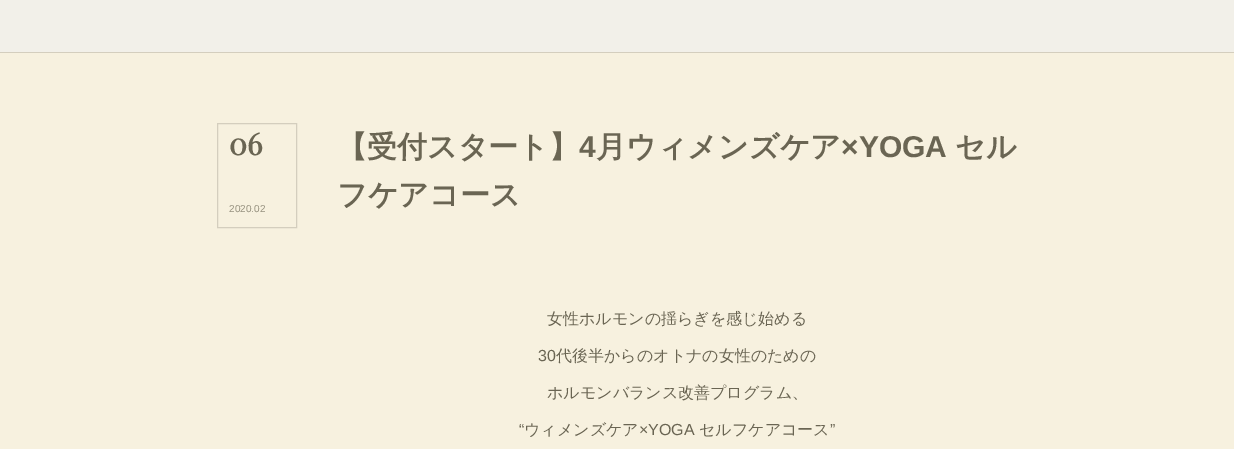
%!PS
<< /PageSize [1234 449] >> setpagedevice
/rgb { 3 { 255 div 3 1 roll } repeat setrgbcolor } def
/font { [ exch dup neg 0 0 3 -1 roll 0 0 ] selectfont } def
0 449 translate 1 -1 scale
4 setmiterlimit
247 241 223 rgb
0 0 1234 449 rectfill
242 240 233 rgb
0 0 1234 52 rectfill
212 206 190 rgb
0 52 1234 1 rectfill
217.5 123.5 79 104 rectstroke
/PlayfairDisplay-Bold 30 font
106 101 83 rgb
229 155 moveto (06) show
/LiberationSans-Regular 10 font
148 143 125 rgb
229 212 moveto (2020.02) show
/WenQuanYiZenHei-Bold 30 font
106 101 83 rgb
337 157 moveto (【受付スタート】) show
/LiberationSans-Bold 30 font
579 157 moveto (4) show
/WenQuanYiZenHei-Bold 30 font
596 157 moveto (月ウィメンズケア) show
/LiberationSans-Bold 30 font
841 157 moveto (×YOGA) show
/WenQuanYiZenHei-Bold 30 font
955 157 moveto (セル) show
337 205 moveto (フケアコース) show
/WenQuanYiZenHei-Medium 16 font
547 324 moveto (女性ホルモンの揺らぎを感じ始める) show
/LiberationSans-Regular 16 font
538 361 moveto (30) show
/WenQuanYiZenHei-Medium 16 font
556 361 moveto (代後半からのオトナの女性のための) show
547 398 moveto (ホルモンバランス改善プログラム、) show
/LiberationSans-Regular 16 font
519 435 moveto (“) show
/WenQuanYiZenHei-Medium 16 font
524 435 moveto (ウィメンズケア) show
/LiberationSans-Regular 16 font
639 435 moveto (×YOGA) show
/WenQuanYiZenHei-Medium 16 font
699 435 moveto (セルフケアコース) show
/LiberationSans-Regular 16 font
830 435 moveto (”) show
showpage
